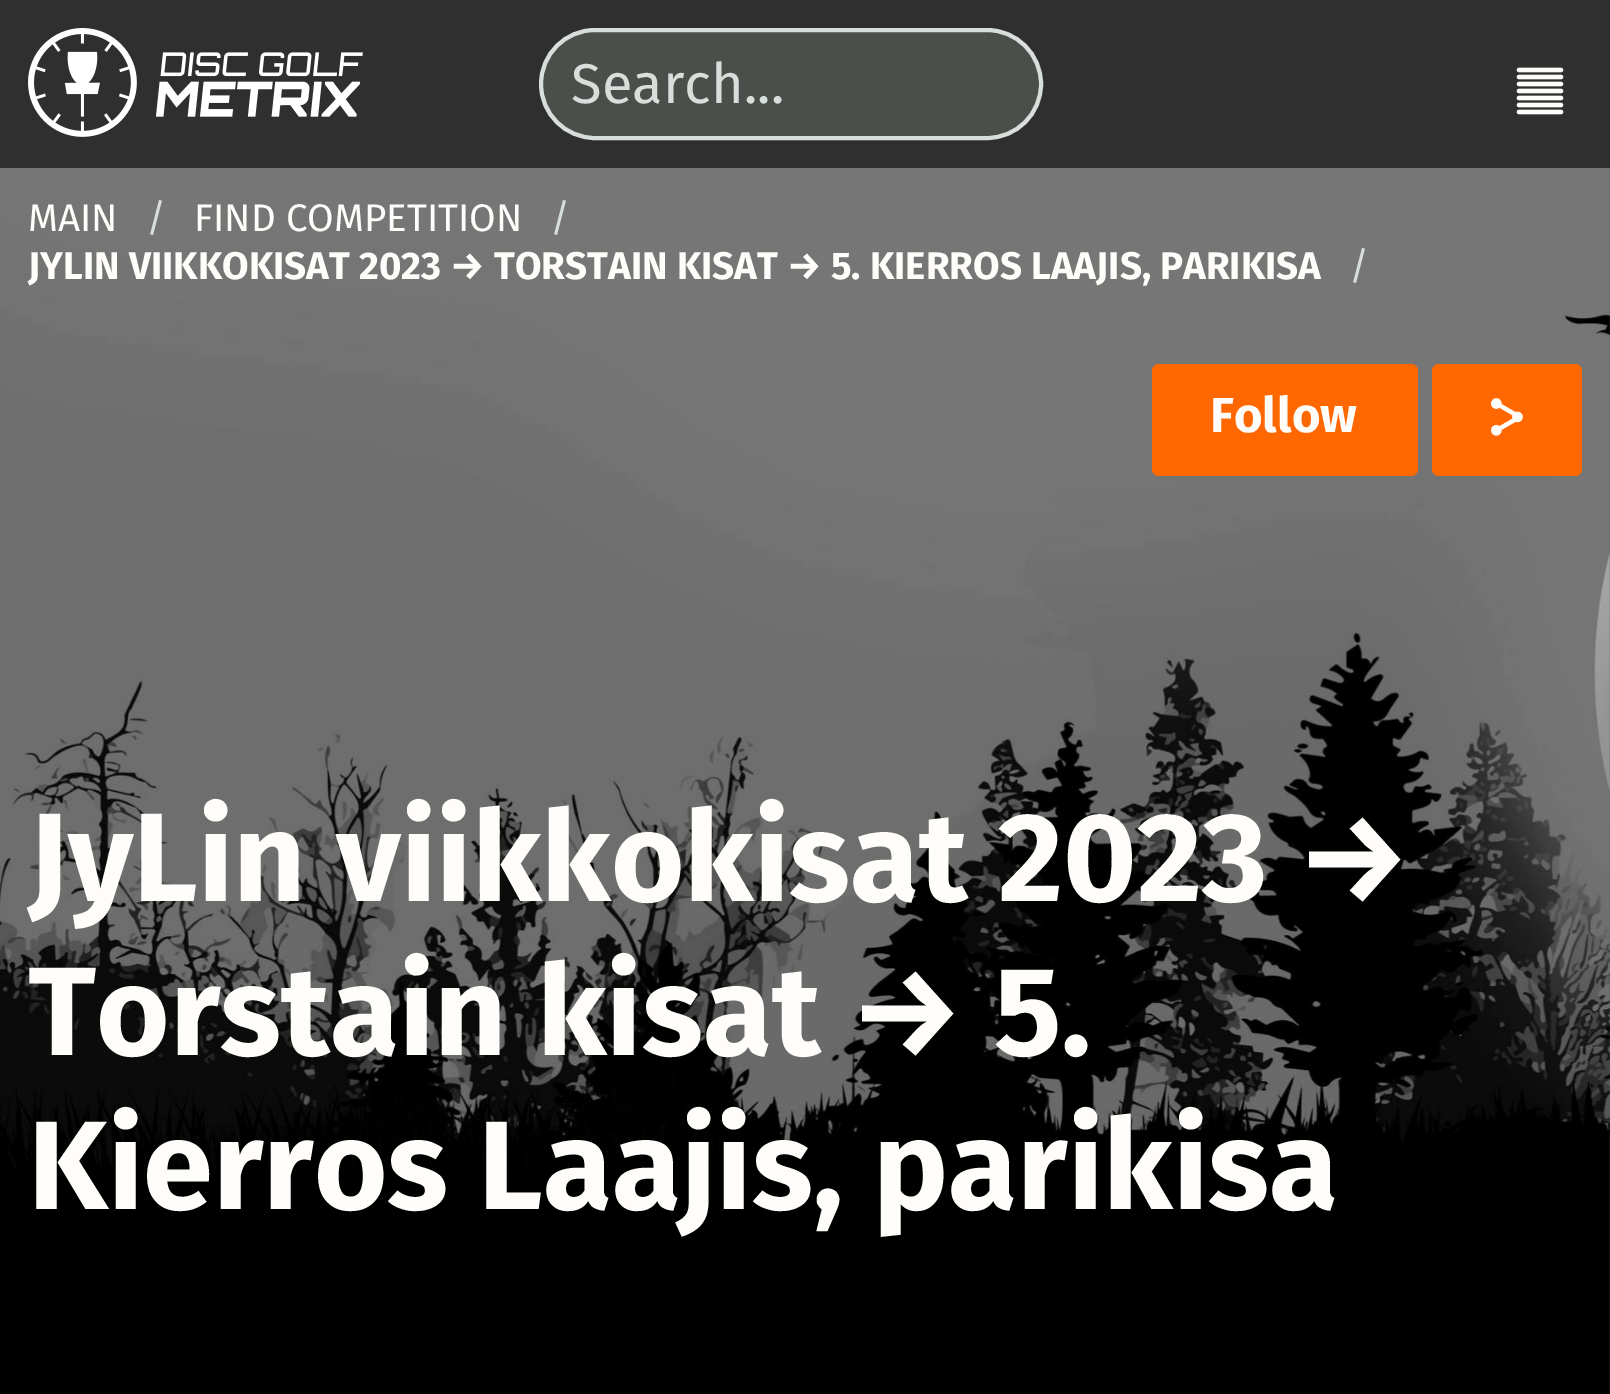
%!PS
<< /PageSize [1610 1394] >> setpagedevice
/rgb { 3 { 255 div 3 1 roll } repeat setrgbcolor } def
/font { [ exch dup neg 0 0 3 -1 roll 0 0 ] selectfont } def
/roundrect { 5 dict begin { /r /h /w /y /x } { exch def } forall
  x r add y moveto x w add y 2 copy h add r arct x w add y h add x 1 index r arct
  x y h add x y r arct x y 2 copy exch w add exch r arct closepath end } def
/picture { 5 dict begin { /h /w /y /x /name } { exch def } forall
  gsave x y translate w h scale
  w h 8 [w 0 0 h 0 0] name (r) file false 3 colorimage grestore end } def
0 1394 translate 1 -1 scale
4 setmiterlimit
255 255 255 rgb
0 0 1610 1394 rectfill
47 47 48 rgb
0 0 1610 168 rectfill
(img/1.rgb) 28 28 335 109 picture
74 79 76 rgb
541 30 500 108 54 roundrect gsave fill grestore
216 223 219 rgb
4 setlinewidth
stroke
(img/2.rgb) 1516 67 48 48 picture
(img/3.rgb) 0 168 1610 1226 picture
255 103 0 rgb
1152 364 266 112 7 roundrect fill
1432 364 150 112 7 roundrect fill
(img/4.rgb) 1491 398 32 38 picture
/FiraSans-Regular 56 font
216 223 219 rgb
571 103 moveto (Search...) show
/FiraSans-Regular 38.5 font
255 253 249 rgb
28 231 moveto (MAIN) show
216 223 219 rgb
146 231 moveto (/) show
255 253 249 rgb
194 231 moveto (FIND COMPETITION) show
216 223 219 rgb
550 231 moveto (/) show
/FiraSans-Bold 38.5 font
255 253 249 rgb
28 279 moveto (JYLIN VIIKKOKISAT 2023 → TORSTAIN KISAT → 5. KIERROS LAAJIS, PARIKISA) show
/FiraSans-Regular 38.5 font
216 223 219 rgb
1349 279 moveto (/) show
/FiraSans-Bold 49 font
255 253 249 rgb
1210 432 moveto (Follow) show
/FiraSans-Bold 126 font
[
  [(JyLin viikkokisat 2023 →) 28 901]
  [(Torstain kisat → 5.) 28 1055]
  [(Kierros Laajis, parikisa) 28 1209]
] { aload pop moveto show } forall
showpage
